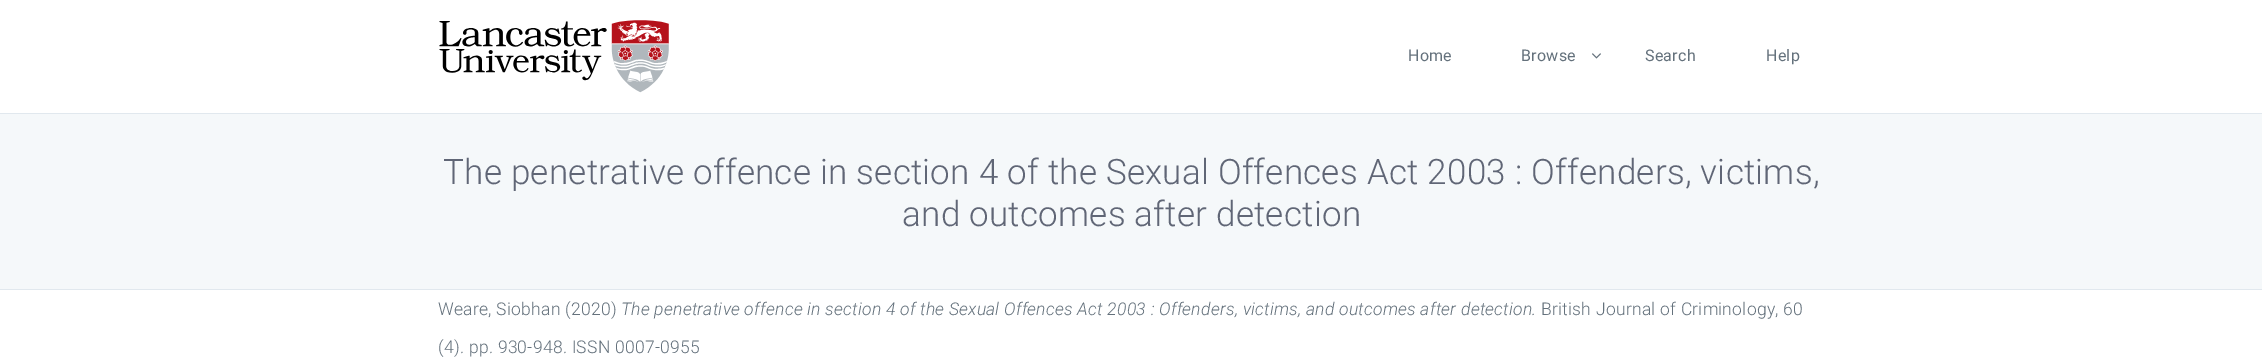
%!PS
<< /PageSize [2262 357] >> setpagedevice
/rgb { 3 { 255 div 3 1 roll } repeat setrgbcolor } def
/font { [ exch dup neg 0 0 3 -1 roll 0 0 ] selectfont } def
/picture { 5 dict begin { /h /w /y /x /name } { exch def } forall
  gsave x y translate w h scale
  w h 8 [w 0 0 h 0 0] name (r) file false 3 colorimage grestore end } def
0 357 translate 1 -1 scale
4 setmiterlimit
255 255 255 rgb
0 0 2262 357 rectfill
(img/1.rgb) 439 20 230 73 picture
(img/2.rgb) 1592 53 9 6 picture
[
  [0 114 2262 175 245 248 250]
  [0 113 2262 1 225 232 238]
  [0 289 2262 1 225 232 238]
] { aload pop rgb rectfill } forall
/Roboto-Regular 16 font
100 113 124 rgb
1408 61 moveto 0.25 0 (Home) ashow
1521 61 moveto 0.25 0 (Browse) ashow
1645 61 moveto 0.25 0 (Search) ashow
1766 61 moveto 0.25 0 (Help) ashow
/Roboto-Light 35 font
96 102 118 rgb
443 184 moveto 0.25 0 (The penetrative offence in section 4 of the Sexual Offences Act 2003 : Offenders, victims,) ashow
902 226 moveto 0.25 0 (and outcomes after detection) ashow
/Roboto-Light 17.5 font
100 113 124 rgb
438 315 moveto 0.25 0 (Weare, Siobhan \(2020\)) ashow
/Roboto-LightItalic 17.5 font
621 315 moveto 0.25 0 (The penetrative offence in section 4 of the Sexual Offences Act 2003 : Offenders, victims, and outcomes after detection.) ashow
/Roboto-Light 17.5 font
1541 315 moveto 0.25 0 (British Journal of Criminology, 60) ashow
438 353 moveto 0.25 0 (\(4\). pp. 930-948. ISSN 0007-0955) ashow
showpage
